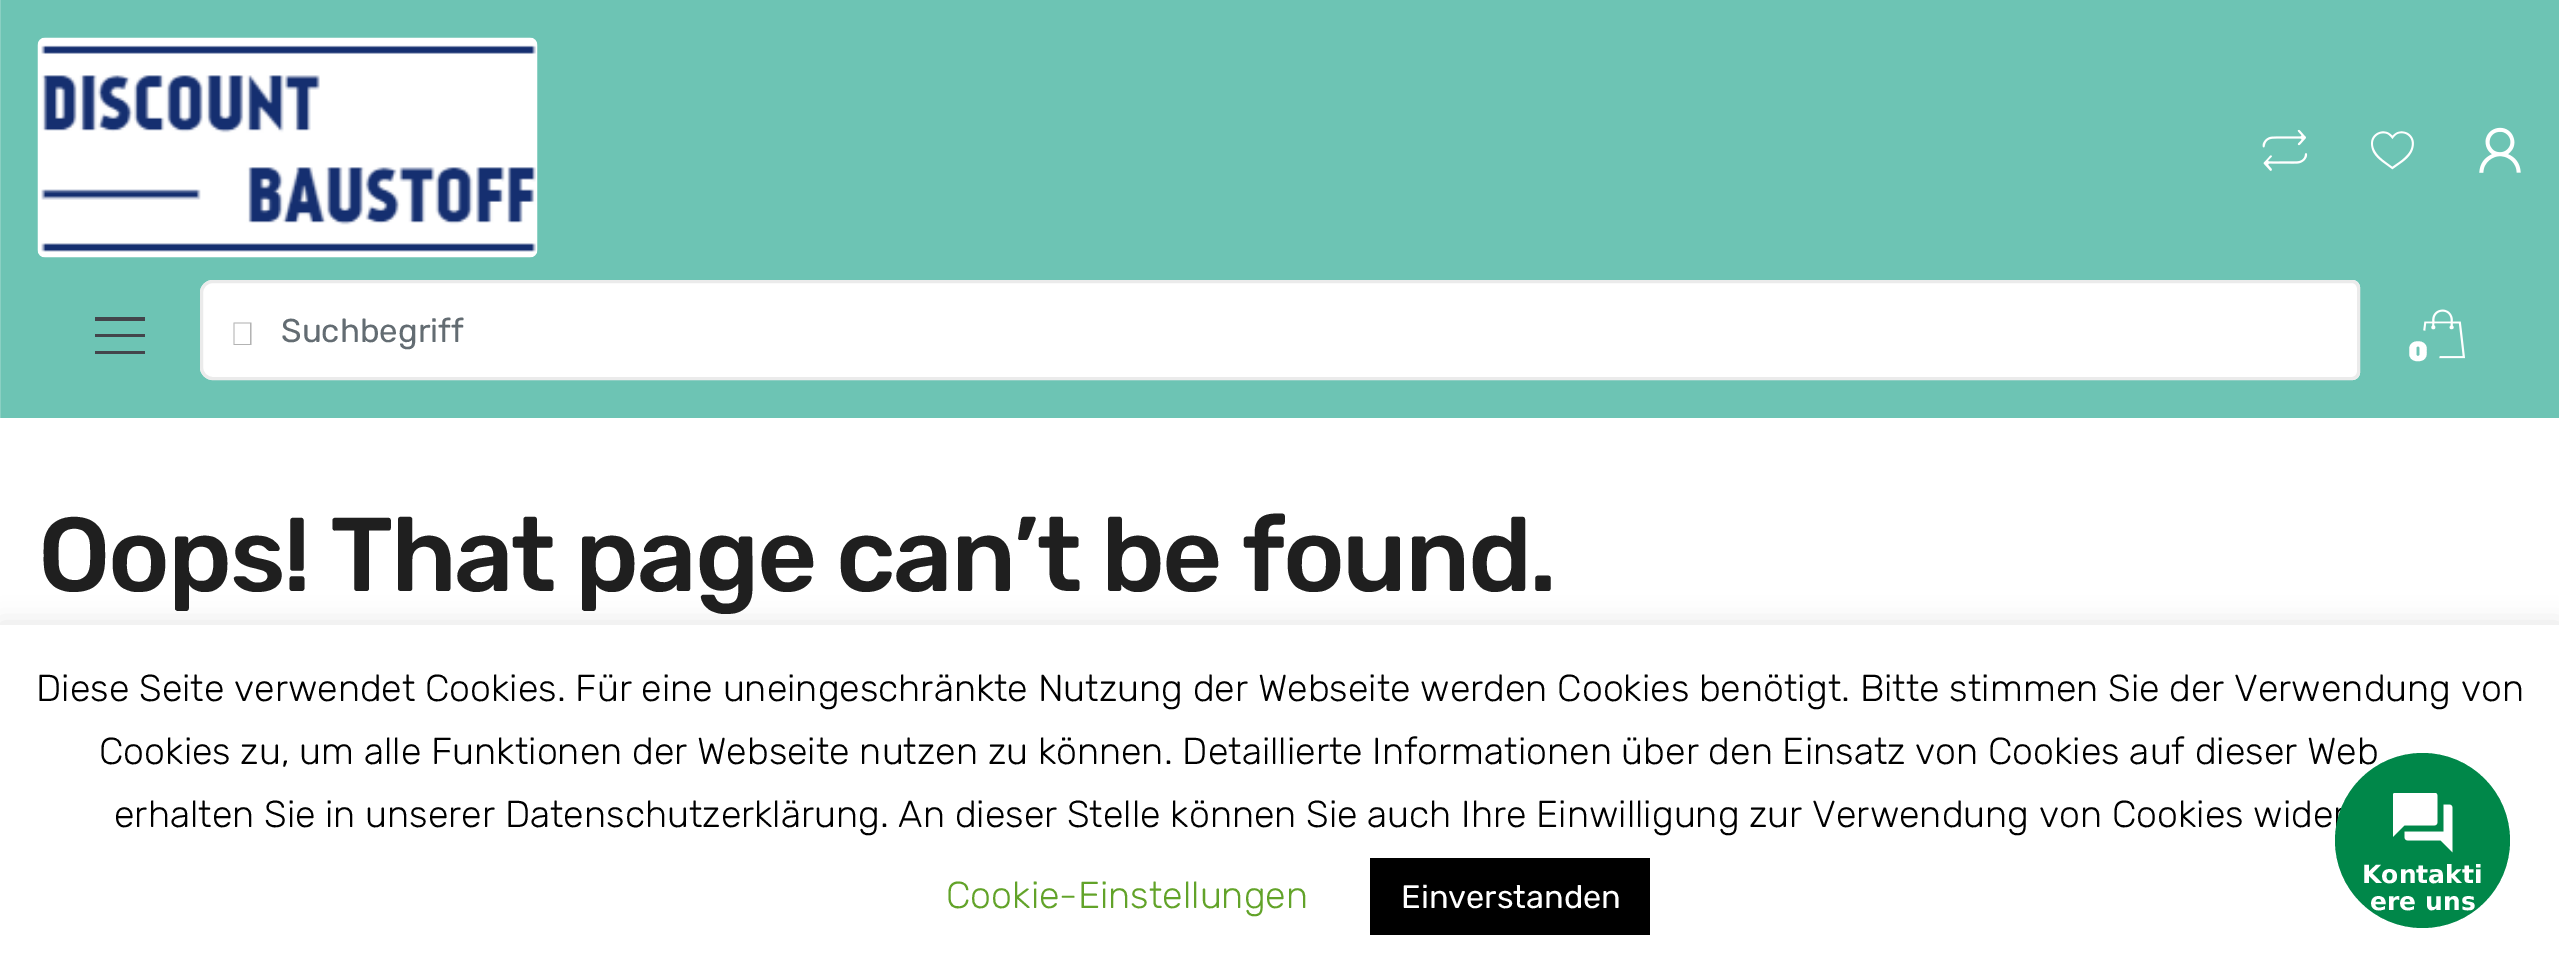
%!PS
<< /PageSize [2559 977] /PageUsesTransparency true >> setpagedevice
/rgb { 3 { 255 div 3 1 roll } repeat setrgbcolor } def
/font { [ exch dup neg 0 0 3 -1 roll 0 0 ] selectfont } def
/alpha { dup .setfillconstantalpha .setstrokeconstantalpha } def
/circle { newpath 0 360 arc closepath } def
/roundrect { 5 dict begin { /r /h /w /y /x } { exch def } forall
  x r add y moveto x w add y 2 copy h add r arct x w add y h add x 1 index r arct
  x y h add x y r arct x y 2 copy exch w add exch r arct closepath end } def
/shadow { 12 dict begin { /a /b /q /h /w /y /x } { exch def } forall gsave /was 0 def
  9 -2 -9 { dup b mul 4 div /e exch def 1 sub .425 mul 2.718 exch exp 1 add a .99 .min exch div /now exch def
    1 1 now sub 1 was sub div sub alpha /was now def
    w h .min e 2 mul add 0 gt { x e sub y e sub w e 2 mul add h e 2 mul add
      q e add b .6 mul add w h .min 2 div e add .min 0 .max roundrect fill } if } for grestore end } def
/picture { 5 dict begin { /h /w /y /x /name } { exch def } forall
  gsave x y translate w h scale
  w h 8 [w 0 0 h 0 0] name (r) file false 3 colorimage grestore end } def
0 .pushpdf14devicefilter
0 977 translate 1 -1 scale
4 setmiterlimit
255 255 255 rgb
0 0 2559 977 rectfill
109 196 180 rgb
0 0 2559 418 rectfill
(img/1.rgb) 37 37 501 221 picture
(img/2.rgb) 2262 129 46 42 picture
(img/3.rgb) 2371 131 43 39 picture
(img/4.rgb) 2479 127 42 46 picture
0.2 alpha
255 255 255 rgb
0 0 1 418 rectfill
1 alpha
67 69 75 rgb
95 317 moveto 95 321 lineto 145 321 lineto 145 317 lineto closepath 95 337 moveto 145 337 lineto 145 334 lineto 95 334 lineto closepath 95 354 moveto 145 354 lineto 145 351 lineto 95 351 lineto closepath fill
gsave
200 280 2160 100 8 roundrect clip newpath
255 255 255 rgb
213 280 moveto 2352 280 lineto 2356.5 280 2360 283.5 2360 288 curveto 2360 372 lineto 2360 376.5 2356.5 380 2352 380 curveto 213 380 lineto 206 380 200 374 200 367 curveto 200 293 lineto 200 286 206 280 213 280 curveto closepath fill
grestore
235 235 235 rgb
3 setlinewidth
213 281.5 moveto 2352 281.5 lineto 2355.5 281.5 2358.5 284.5 2358.5 288 curveto 2358.5 372 lineto 2358.5 375.5 2355.5 378.5 2352 378.5 curveto 213 378.5 lineto 206.5 378.5 201.5 373.5 201.5 367 curveto 201.5 293 lineto 201.5 286.5 206.5 281.5 213 281.5 curveto closepath stroke
179 179 179 rgb
233.5 322.5 moveto 251.5 322.5 lineto 251.5 345 lineto 233.5 345 lineto closepath 234.5 323.5 moveto 234.5 344 lineto 250 344 lineto 250 323.5 lineto closepath fill
(img/5.rgb) 2423 309 42 50 picture
109 196 180 rgb
2398 330 42 43 21 roundrect fill
172 171 171 rgb
0 623 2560 352 0 12.5 0.3 shadow
255 255 255 rgb
0 625 2559 352 rectfill
0 0 0 rgb
1370 858 280 77 rectfill
/Rubik-Regular 33 font
99 108 114 rgb
281 342 moveto (Suchbegriff) show
/Rubik-Black 28 font
255 255 255 rgb
2408 361 moveto (0) show
/Rubik-Medium 104.75 font
31 31 31 rgb
38 591 moveto -2.5 0 (Oops! That page can’t be found.) ashow
/Rubik-Light 37.5 font
0 0 0 rgb
[
  [(Diese Seite verwendet Cookies. Für eine uneingeschränkte Nutzung der Webseite werden Cookies benötigt. Bitte stimmen Sie der Verwendung von) 36 701]
  [(Cookies zu, um alle Funktionen der Webseite nutzen zu können. Detaillierte Informationen über den Einsatz von Cookies auf dieser Web) 99 764]
  [(erhalten Sie in unserer Datenschutzerklärung. An dieser Stelle können Sie auch Ihre Einwilligung zur Verwendung von Cookies wider) 114 827]
] { aload pop moveto show } forall
98 163 41 rgb
946 908 moveto (Cookie-Einstellungen) show
/Rubik-Regular 32.5 font
255 255 255 rgb
1401 908 moveto (Einverstanden) show
0 135 73 rgb
2422.5 840.5 87.5 circle fill
(img/6.rgb) 2393 793 60 60 picture
/DejaVuSans-Bold 25 font
255 255 255 rgb
2362 883 moveto (Kontakti) show
2370 910 moveto (ere uns) show
.poppdf14devicefilter showpage
